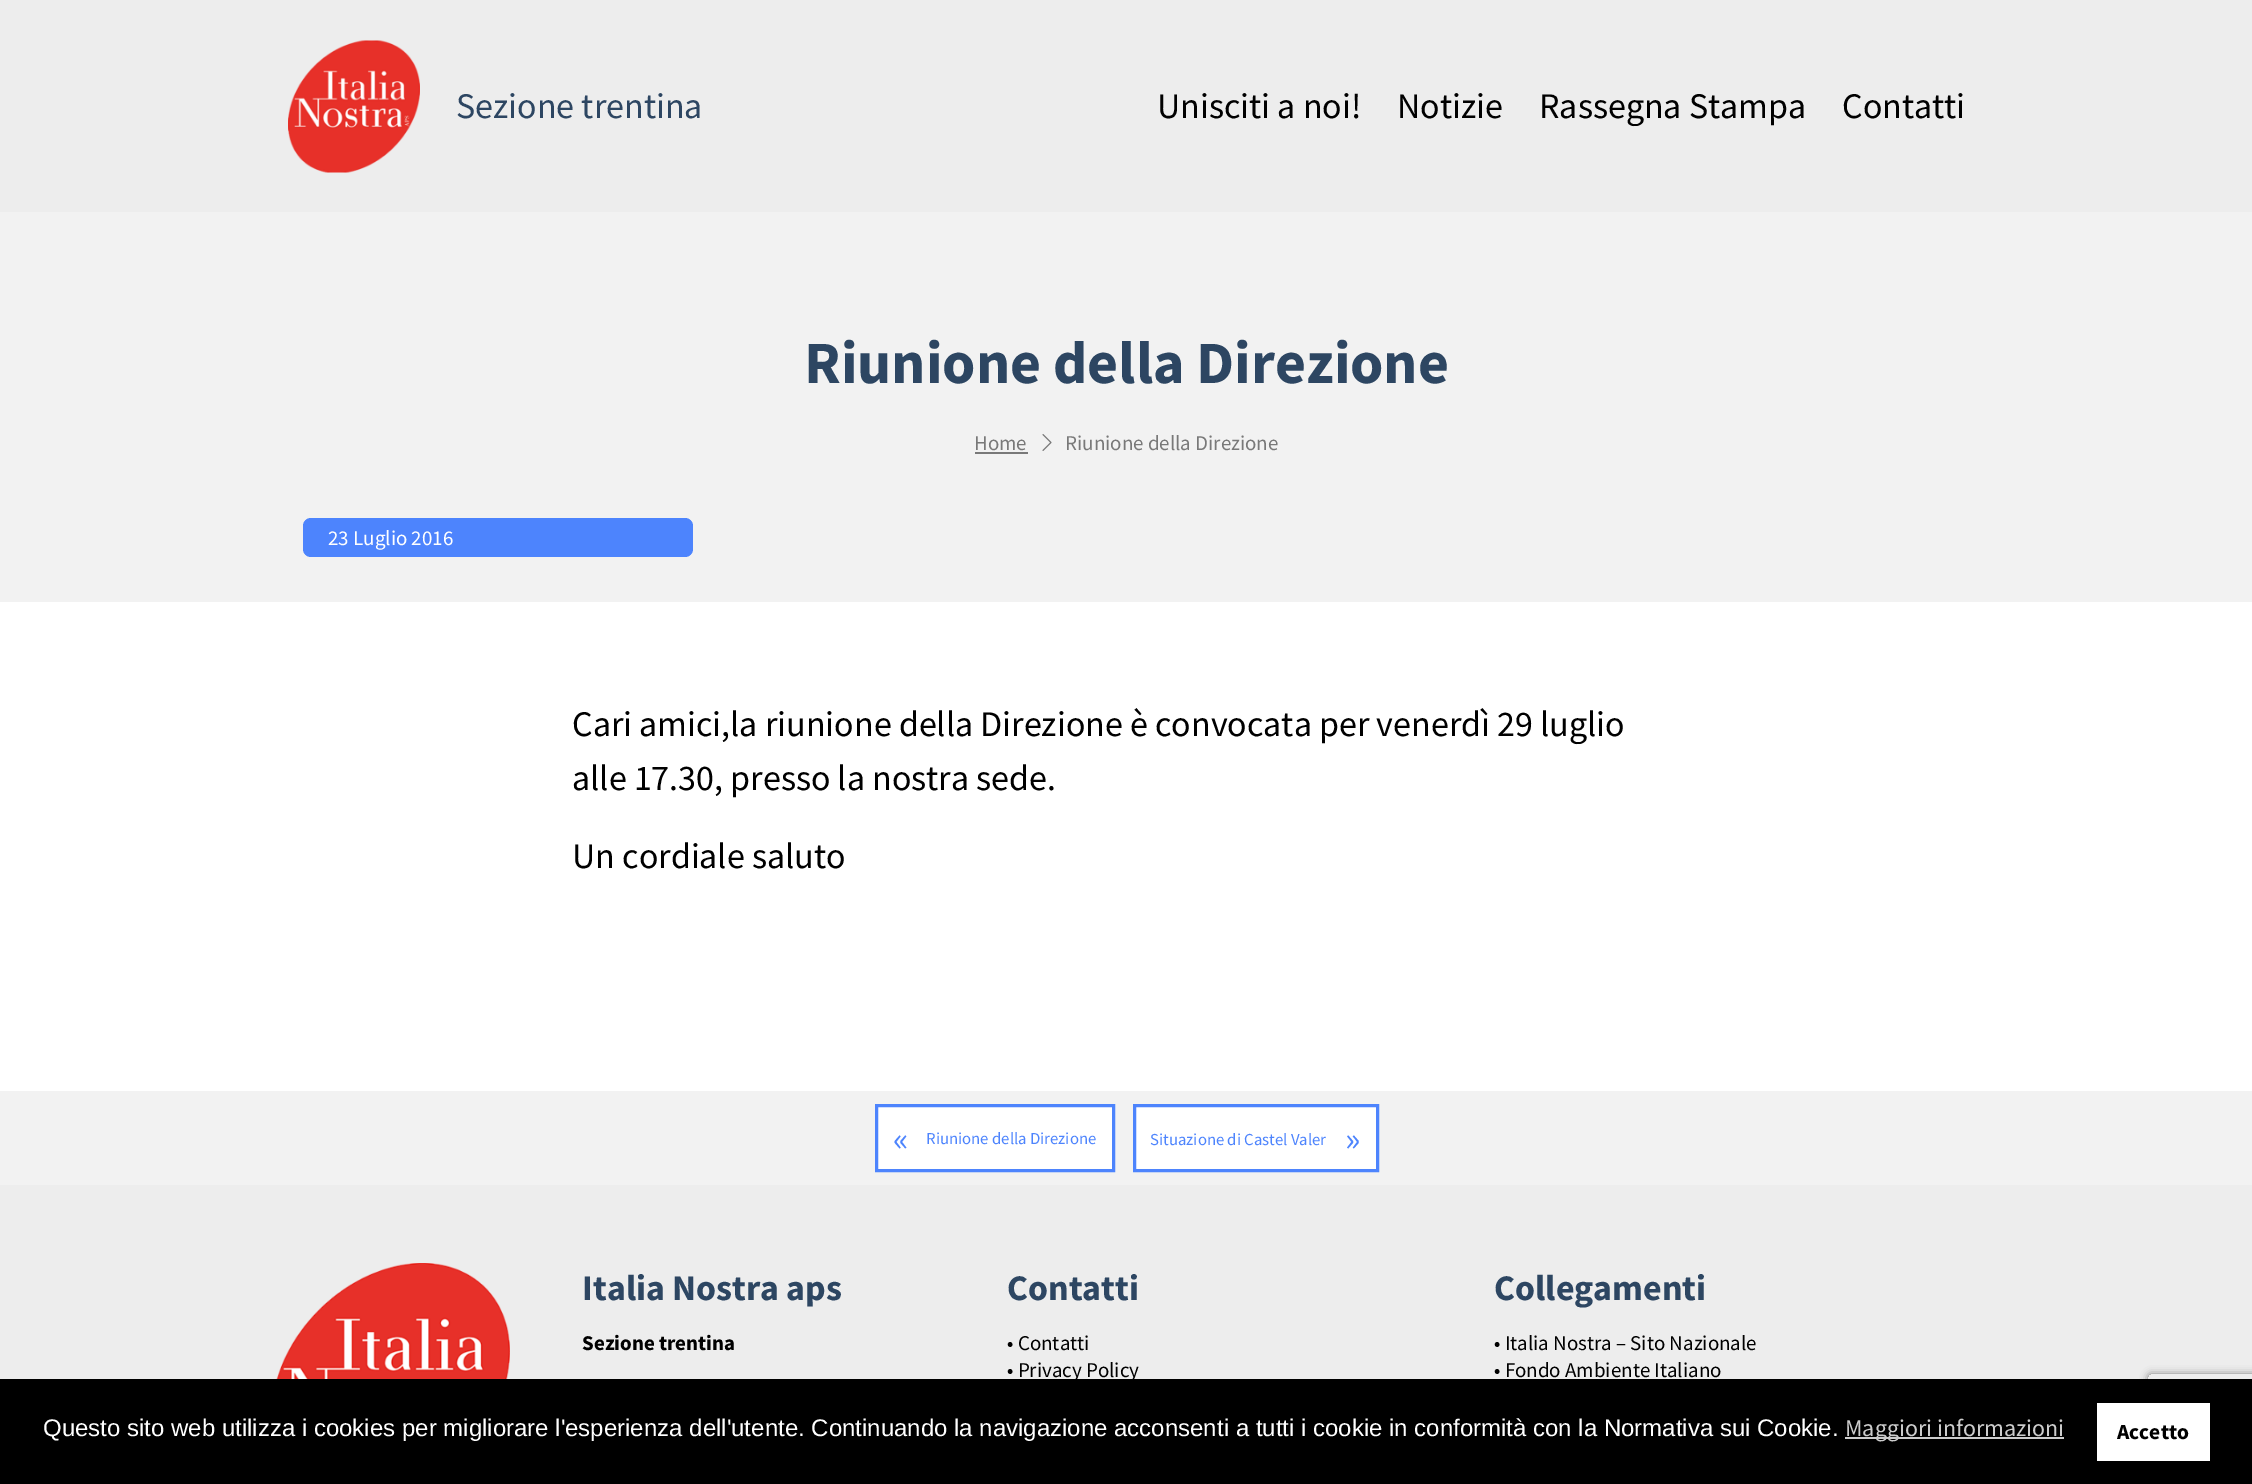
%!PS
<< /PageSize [2252 1484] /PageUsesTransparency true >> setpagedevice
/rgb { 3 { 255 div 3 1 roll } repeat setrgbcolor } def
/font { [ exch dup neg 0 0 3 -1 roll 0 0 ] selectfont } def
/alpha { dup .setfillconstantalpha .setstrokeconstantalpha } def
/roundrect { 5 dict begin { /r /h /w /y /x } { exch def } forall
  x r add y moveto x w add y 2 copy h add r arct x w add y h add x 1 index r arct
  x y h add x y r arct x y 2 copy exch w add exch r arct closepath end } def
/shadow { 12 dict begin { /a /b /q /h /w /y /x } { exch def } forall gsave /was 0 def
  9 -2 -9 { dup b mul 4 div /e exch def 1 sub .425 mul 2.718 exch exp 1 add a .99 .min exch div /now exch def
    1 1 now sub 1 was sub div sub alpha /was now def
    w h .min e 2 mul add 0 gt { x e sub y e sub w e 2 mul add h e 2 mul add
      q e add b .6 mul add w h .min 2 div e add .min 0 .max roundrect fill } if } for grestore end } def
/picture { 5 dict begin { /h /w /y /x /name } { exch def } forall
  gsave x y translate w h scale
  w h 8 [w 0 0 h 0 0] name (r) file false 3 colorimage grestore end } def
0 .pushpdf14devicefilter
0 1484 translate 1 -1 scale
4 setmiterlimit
255 255 255 rgb
0 0 2252 1484 rectfill
237 237 237 rgb
0 0 2252 212 rectfill
(img/1.rgb) 288 40 132 133 picture
242 242 242 rgb
0 212 2252 390 rectfill
121 121 121 rgb
975 452 53 2 rectfill
(img/2.rgb) 1042 434 10 17 picture
77 132 253 rgb
303 518 390 39 8 roundrect fill
242 242 242 rgb
0 1091 2252 94 rectfill
255 255 255 rgb
878 1107 234 62 rectfill
77 132 253 rgb
3 setlinewidth
876.5 1105.5 237 65 rectstroke
255 255 255 rgb
1136 1107 240 62 rectfill
77 132 253 rgb
1134.5 1105.5 243 65 rectstroke
237 237 237 rgb
0 1185 2252 194 rectfill
(img/3.rgb) 276 1263 234 116 picture
gsave
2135 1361 moveto 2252 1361 lineto 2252 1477 lineto 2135 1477 lineto closepath 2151 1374 moveto 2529 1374 lineto 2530.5 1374 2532 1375.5 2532 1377 curveto 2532 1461 lineto 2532 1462.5 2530.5 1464 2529 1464 curveto 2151 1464 lineto 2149.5 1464 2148 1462.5 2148 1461 curveto 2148 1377 lineto 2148 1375.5 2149.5 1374 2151 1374 curveto closepath eoclip newpath
128 128 128 rgb
2148 1374 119 90 3 4 1 shadow
grestore
[
  [0 1379 2252 105 0 0 0]
  [1845 1437 219 2 204 204 204]
  [2097 1403 113 58 255 255 255]
] { aload pop rgb rectfill } forall
/SourceSansPro-Regular 36 font
45 70 98 rgb
456 118 moveto (Sezione trentina) show
0 0 0 rgb
[
  [(Unisciti a noi!) 1157 118]
  [(Notizie) 1397 118]
  [(Rassegna Stampa) 1539 118]
  [(Contatti) 1842 118]
] { aload pop moveto show } forall
/SourceSansPro-Bold 60 font
45 70 98 rgb
804 383 moveto (Riunione della Direzione) show
/SourceSansPro-Regular 21 font
121 121 121 rgb
974 450 moveto (Home) show
1065 450 moveto (Riunione della Direzione) show
255 255 255 rgb
328 545 moveto (23 Luglio 2016) show
/SourceSansPro-Regular 36 font
0 0 0 rgb
[
  [(Cari amici,la riunione della Direzione è convocata per venerdì 29 luglio) 572 736]
  [(alle 17.30, presso la nostra sede.) 572 790]
  [(Un cordiale saluto) 572 868]
] { aload pop moveto show } forall
77 132 253 rgb
893 1151 moveto («) show
/SourceSansPro-Regular 16.75 font
926 1144 moveto (Riunione della Direzione) show
1150 1145 moveto (Situazione di Castel Valer) show
/SourceSansPro-Regular 36 font
1345 1151 moveto (») show
/SourceSansPro-Bold 36 font
45 70 98 rgb
582 1300 moveto (Italia Nostra aps) show
/SourceSansPro-Bold 21 font
0 0 0 rgb
582 1350 moveto (Sezione trentina) show
/SourceSansPro-Bold 36 font
45 70 98 rgb
1007 1300 moveto (Contatti) show
/SourceSansPro-Regular 21 font
0 0 0 rgb
1007 1350 moveto (• Contatti) show
1007 1377 moveto (• Privacy Policy) show
/SourceSansPro-Bold 36 font
45 70 98 rgb
1494 1300 moveto (Collegamenti) show
/SourceSansPro-Regular 21 font
0 0 0 rgb
1494 1350 moveto (• Italia Nostra – Sito Nazionale) show
1494 1377 moveto (• Fondo Ambiente Italiano) show
/LiberationSans-Regular 24 font
255 255 255 rgb
43 1436 moveto (Questo sito web utilizza i cookies per migliorare l'esperienza dell'utente. Continuando la navigazione acconsenti a tutti i cookie in conformità con la Normativa sui Cookie.) show
/SourceSansPro-Regular 24 font
204 204 204 rgb
1845 1436 moveto (Maggiori informazioni) show
/SourceSansPro-Bold 21.5 font
0 0 0 rgb
2117 1439 moveto (Accetto) show
.poppdf14devicefilter showpage
